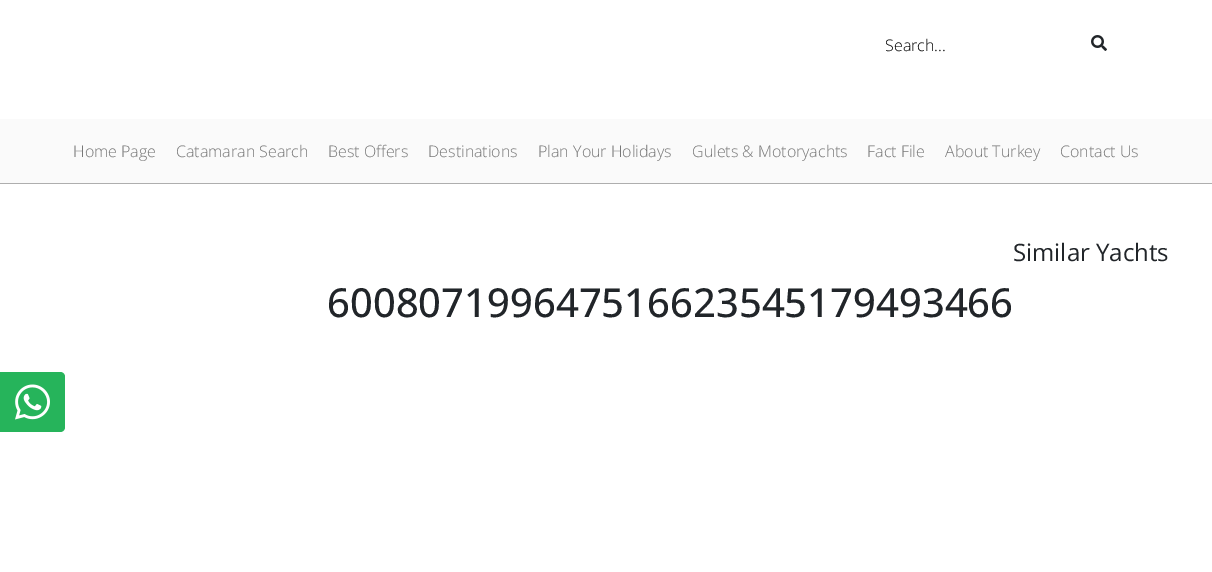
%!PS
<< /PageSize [1212 572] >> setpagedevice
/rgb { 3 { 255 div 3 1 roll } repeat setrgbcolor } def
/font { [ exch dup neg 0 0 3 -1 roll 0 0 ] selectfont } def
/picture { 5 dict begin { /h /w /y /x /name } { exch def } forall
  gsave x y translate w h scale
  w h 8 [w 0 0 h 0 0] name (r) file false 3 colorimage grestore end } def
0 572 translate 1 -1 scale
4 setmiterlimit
255 255 255 rgb
0 0 1212 572 rectfill
(img/1.rgb) 1091 35 16 16 picture
174 174 174 rgb
0 183 1212 1 rectfill
250 250 250 rgb
0 119 1212 64 rectfill
38 180 91 rgb
0 372 moveto 60 372 lineto 63 372 65 374 65 377 curveto 65 427 lineto 65 430 63 432 60 432 curveto 0 432 lineto closepath fill
(img/2.rgb) 15 384 35 36 picture
/OpenSans-Light 16 font
0 0 0 rgb
885 51 moveto (Search...) show
119 119 119 rgb
[
  [(Home Page) 73 157]
  [(Catamaran Search) 176 157]
  [(Best Offers) 328 157]
  [(Destinations) 428 157]
  [(Plan Your Holidays) 538 157]
  [(Gulets & Motoryachts) 692 157]
  [(Fact File) 867 157]
  [(About Turkey) 945 157]
  [(Contact Us) 1060 157]
] { aload pop moveto show } forall
/OpenSans-Regular 24 font
33 37 41 rgb
1013 261 moveto (Similar Yachts) show
/OpenSans-Medium 40 font
327 317 moveto (600807199647516623545179493466) show
showpage
